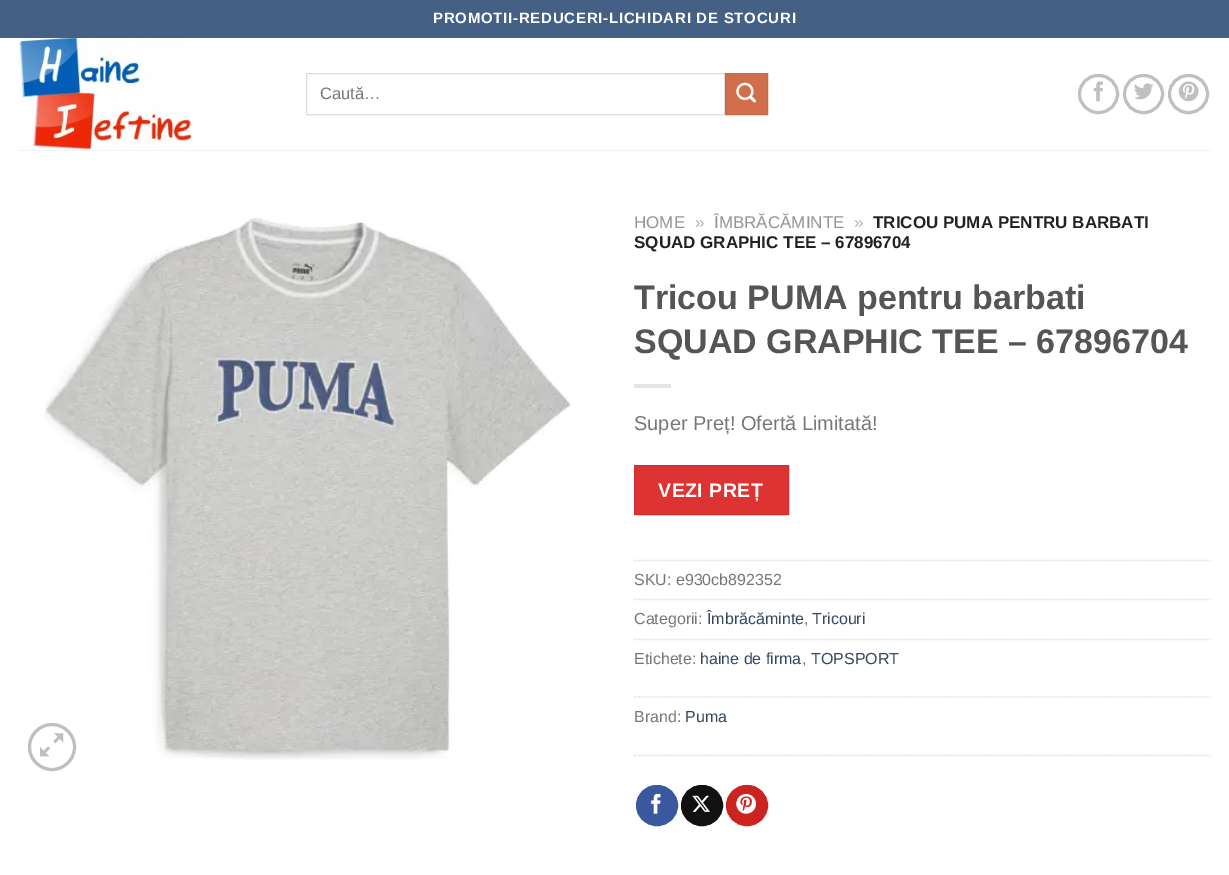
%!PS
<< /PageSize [1229 875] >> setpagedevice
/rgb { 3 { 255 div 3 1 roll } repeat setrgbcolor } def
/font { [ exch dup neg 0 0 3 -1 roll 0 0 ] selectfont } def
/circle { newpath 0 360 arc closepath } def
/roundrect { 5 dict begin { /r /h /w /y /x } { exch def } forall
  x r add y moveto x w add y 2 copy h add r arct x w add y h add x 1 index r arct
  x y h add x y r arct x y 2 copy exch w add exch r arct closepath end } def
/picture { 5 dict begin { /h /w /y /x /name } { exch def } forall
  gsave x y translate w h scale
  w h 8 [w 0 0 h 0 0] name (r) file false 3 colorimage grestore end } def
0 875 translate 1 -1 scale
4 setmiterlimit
255 255 255 rgb
0 0 1229 875 rectfill
68 96 132 rgb
0 0 1229 38 rectfill
(img/1.rgb) 18 38 174 112 picture
221 221 221 rgb
306.5 73.5 418 41 rectstroke
210 110 75 rgb
725.5 73.5 moveto 767.5 73.5 lineto 767.5 114.5 lineto 725.5 114.5 lineto closepath gsave fill grestore
200 105 71 rgb
stroke
(img/2.rgb) 736 82 20 21 picture
192 192 192 rgb
3 setlinewidth
1079.5 75.5 38 37 18.5 roundrect stroke
(img/3.rgb) 1093 81 10 21 picture
1124.5 75.5 38 37 18.5 roundrect stroke
(img/4.rgb) 1134 83 20 17 picture
1169.5 75.5 38 37 18.5 roundrect stroke
(img/5.rgb) 1178 81 21 21 picture
241 241 241 rgb
19 150 1192 1 rectfill
(img/6.rgb) 44 218 528 543 picture
192 192 192 rgb
52 747 22.5 circle stroke
(img/7.rgb) 40 733 24 24 picture
230 230 230 rgb
634 384 37 4 rectfill
221 51 51 rgb
634.5 465.5 moveto 788.5 465.5 lineto 788.5 514.5 lineto 634.5 514.5 lineto closepath gsave fill grestore
210 48 48 rgb
1 setlinewidth
stroke
221 221 221 rgb
1.2 setlinewidth
[1.25 1.25] 0 setdash
634 560.5 moveto 1211 560.5 lineto stroke
634 599.5 moveto 1211 599.5 lineto stroke
634 639.5 moveto 1211 639.5 lineto stroke
634 697 moveto 1211 697 lineto stroke
634 755.5 moveto 1211 755.5 lineto stroke
58 88 157 rgb
636.5 785.5 41 40 20 roundrect gsave fill grestore
1 setlinewidth
[] 0 setdash
stroke
(img/8.rgb) 651 793 10 21 picture
17 17 17 rgb
681.5 785.5 41 40 20 roundrect gsave fill grestore
stroke
(img/9.rgb) 692 795 18 17 picture
203 35 32 rgb
726.5 785.5 41 40 20 roundrect gsave fill grestore
stroke
(img/10.rgb) 736 793 20 21 picture
/LiberationSans-Bold 15 font
255 255 255 rgb
433 23 moveto 0.75 0 (PROMOTII-REDUCERI-LICHIDARI DE STOCURI) ashow
/LiberationSans-Regular 16.5 font
119 119 119 rgb
320 99 moveto (Caută…) show
/LiberationSans-Regular 17 font
148 148 148 rgb
634 228 moveto (HOME) show
178 178 178 rgb
695 228 moveto (») show
148 148 148 rgb
714 228 moveto (ÎMBRĂCĂMINTE) show
178 178 178 rgb
854 228 moveto (») show
/LiberationSans-Bold 17 font
34 34 34 rgb
873 228 moveto (TRICOU PUMA PENTRU BARBATI) show
634 248 moveto (SQUAD GRAPHIC TEE – 67896704) show
/LiberationSans-Bold 34 font
85 85 85 rgb
634 309 moveto (Tricou PUMA pentru barbati) show
634 353 moveto (SQUAD GRAPHIC TEE – 67896704) show
/LiberationSans-Regular 20 font
119 119 119 rgb
634 430 moveto (Super Preț! Ofertă Limitată!) show
/LiberationSans-Bold 19.5 font
255 255 255 rgb
658 497 moveto 0.5 0 (VEZI PREȚ) ashow
/LiberationSans-Regular 16 font
119 119 119 rgb
634 585 moveto (SKU: e930cb892352) show
634 624 moveto (Categorii:) show
51 72 98 rgb
707 624 moveto (Îmbrăcăminte) show
119 119 119 rgb
804 624 moveto (,) show
51 72 98 rgb
812 624 moveto (Tricouri) show
119 119 119 rgb
634 664 moveto (Etichete:) show
51 72 98 rgb
700 664 moveto (haine de firma) show
119 119 119 rgb
802 664 moveto (,) show
51 72 98 rgb
811 664 moveto (TOPSPORT) show
119 119 119 rgb
634 722 moveto (Brand:) show
51 72 98 rgb
685 722 moveto (Puma) show
showpage
